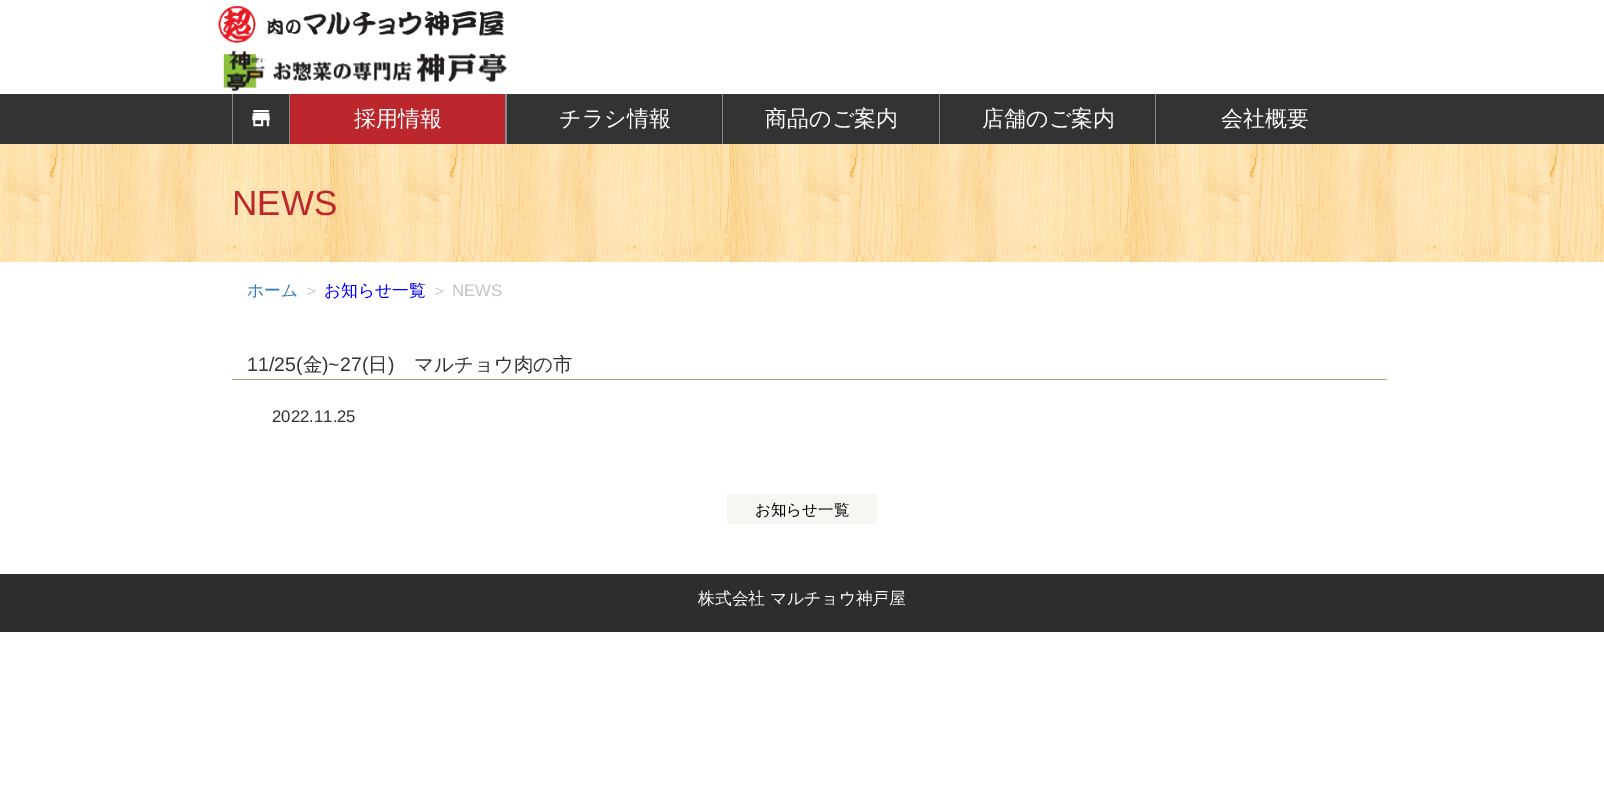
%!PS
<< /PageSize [1604 789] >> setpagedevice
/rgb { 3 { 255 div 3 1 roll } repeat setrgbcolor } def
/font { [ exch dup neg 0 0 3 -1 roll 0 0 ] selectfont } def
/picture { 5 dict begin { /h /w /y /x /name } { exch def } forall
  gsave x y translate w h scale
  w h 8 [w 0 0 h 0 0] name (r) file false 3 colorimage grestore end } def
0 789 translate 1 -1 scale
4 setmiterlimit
255 255 255 rgb
0 0 1604 789 rectfill
(img/1.rgb) 218 6 286 37 picture
(img/2.rgb) 223 50 284 41 picture
50 51 51 rgb
0 94 1604 50 rectfill
136 136 136 rgb
232 94 1 50 rectfill
(img/3.rgb) 252 110 18 17 picture
[
  [290 94 215 50 188 39 45]
  [505 94 2 50 136 136 136]
  [289 94 1 50 136 136 136]
  [722 94 1 50 136 136 136]
  [939 94 1 50 136 136 136]
  [1155 94 1 50 136 136 136]
] { aload pop rgb rectfill } forall
(img/4.rgb) 0 144 1604 118 picture
[
  [232 379 1155 1 175 163 122]
  [727 494 150 30 247 246 242]
  [0 574 1604 58 45 45 45]
] { aload pop rgb rectfill } forall
/WenQuanYiZenHei-Medium 22 font
255 255 255 rgb
[
  [(採用情報) 354 126]
  [(チラシ情報) 559 126]
  [(商品のご案内) 765 126]
  [(店舗のご案内) 982 126]
  [(会社概要) 1221 126]
] { aload pop moveto show } forall
/LiberationSans-Regular 35 font
188 39 45 rgb
232 215 moveto (NEWS) show
/WenQuanYiZenHei-Medium 16.75 font
51 122 183 rgb
247 296 moveto (ホーム) show
196 196 196 rgb
303 296 moveto (＞) show
0 0 255 rgb
324 296 moveto (お知らせ一覧) show
196 196 196 rgb
431 296 moveto (＞) show
/LiberationSans-Regular 16.75 font
452 296 moveto (NEWS) show
/LiberationSans-Regular 19.5 font
51 51 51 rgb
247 371 moveto (11/25\() show
/WenQuanYiZenHei-Medium 19.5 font
303 371 moveto (金) show
/LiberationSans-Regular 19.5 font
322 371 moveto (\)~27\() show
/WenQuanYiZenHei-Medium 19.5 font
368 371 moveto (日) show
/LiberationSans-Regular 19.5 font
388 371 moveto (\)) show
/WenQuanYiZenHei-Medium 19.5 font
414 371 moveto (マルチョウ肉の市) show
/LiberationSans-Regular 16.75 font
272 422 moveto (2022.11.25) show
/WenQuanYiZenHei-Medium 15.5 font
0 0 0 rgb
755 515 moveto (お知らせ一覧) show
/WenQuanYiZenHei-Medium 16.75 font
255 255 255 rgb
698 604 moveto (株式会社 マルチョウ神戸屋) show
showpage
